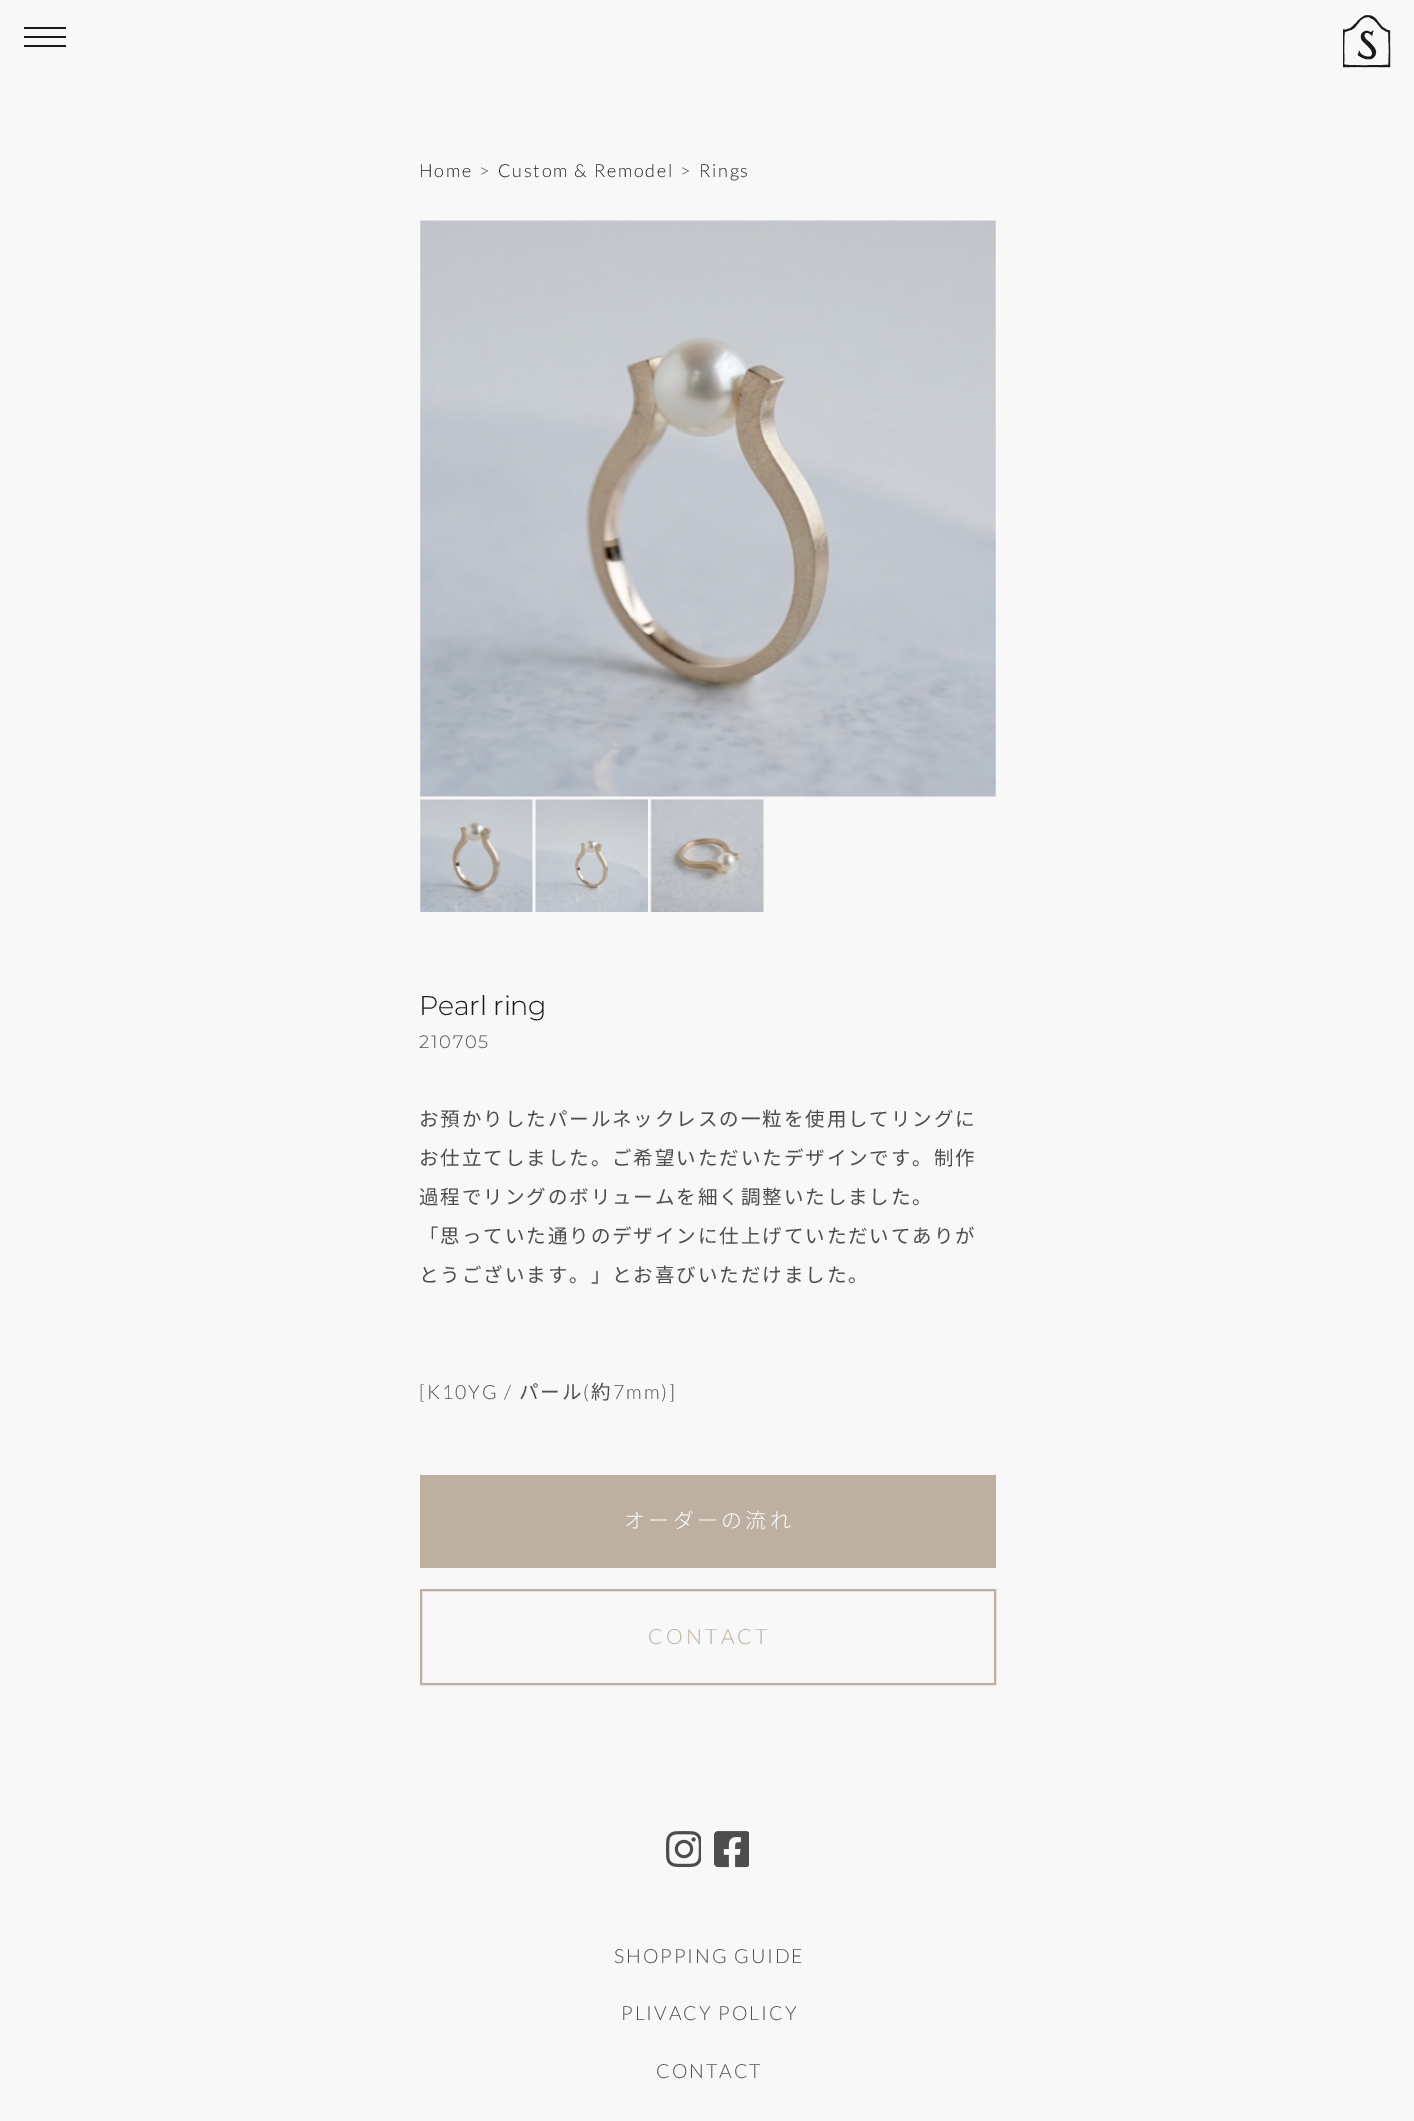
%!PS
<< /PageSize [1414 2121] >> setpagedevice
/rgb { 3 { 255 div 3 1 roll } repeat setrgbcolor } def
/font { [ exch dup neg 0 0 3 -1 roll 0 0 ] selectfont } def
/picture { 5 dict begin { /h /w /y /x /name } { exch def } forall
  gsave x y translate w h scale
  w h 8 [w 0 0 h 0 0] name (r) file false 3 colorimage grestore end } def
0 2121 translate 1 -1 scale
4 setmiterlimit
248 248 248 rgb
0 0 1414 2121 rectfill
[
  [24 36 42 2 26 26 26]
  [24 27 42 2 26 26 26]
  [24 45 42 2 26 26 26]
] { aload pop rgb rectfill } forall
(img/1.rgb) 1343 15 48 53 picture
(img/2.rgb) 420 220 576 577 picture
(img/3.rgb) 420 799 113 113 picture
(img/4.rgb) 535 799 113 113 picture
(img/5.rgb) 650 799 114 113 picture
190 176 160 rgb
420 1475 576 93 rectfill
2 setlinewidth
421 1590 574 94 rectstroke
(img/6.rgb) 666 1831 35 37 picture
(img/7.rgb) 714 1831 35 37 picture
/Lato-Light 18 font
26 26 26 rgb
419 177 moveto 1.75 0 (Home) ashow
77 77 77 rgb
479 177 moveto 1.75 0 (>) ashow
26 26 26 rgb
498 177 moveto 1.75 0 (Custom & Remodel) ashow
77 77 77 rgb
680 177 moveto 1.75 0 (>) ashow
26 26 26 rgb
699 177 moveto 1.75 0 (Rings) ashow
/Montserrat-Light 27 font
419 1015 moveto -0.25 0 (Pearl ring) ashow
/Montserrat-Light 18 font
77 77 77 rgb
419 1048 moveto 1.75 0 (210705) ashow
/NotoSansJP-Regular 19.5 font
419 1126 moveto 1.95 0 (お預かりしたパールネックレスの一粒を使用してリングに) ashow
419 1165 moveto 1.95 0 (お仕立てしました。ご希望いただいたデザインです。制作) ashow
419 1204 moveto 1.95 0 (過程でリングのボリュームを細く調整いたしました。) ashow
419 1243 moveto 1.95 0 (「思っていた通りのデザインに仕上げていただいてありが) ashow
419 1282 moveto 1.95 0 (とうございます。」とお喜びいただけました。) ashow
/Lato-Light 19.5 font
419 1399 moveto 1.95 0 ([K10YG /) ashow
/NotoSansJP-Regular 19.5 font
519 1399 moveto 1.95 0 (パール) ashow
/Lato-Light 19.5 font
583 1399 moveto 1.95 0 (\() ashow
/NotoSansJP-Regular 19.5 font
591 1399 moveto 1.95 0 (約) ashow
/Lato-Light 19.5 font
613 1399 moveto 1.95 0 (7mm\)]) ashow
/NotoSansJP-Light 21 font
255 255 255 rgb
624 1528 moveto 3.25 0 (オーダーの流れ) ashow
/Lato-Light 21 font
190 176 160 rgb
648 1644 moveto 3.25 0 (CONTACT) ashow
/Lato-Light 19.5 font
77 77 77 rgb
614 1963 moveto 1.95 0 (SHOPPING GUIDE) ashow
621 2020 moveto 1.95 0 (PLIVACY POLICY) ashow
656 2078 moveto 1.95 0 (CONTACT) ashow
showpage
